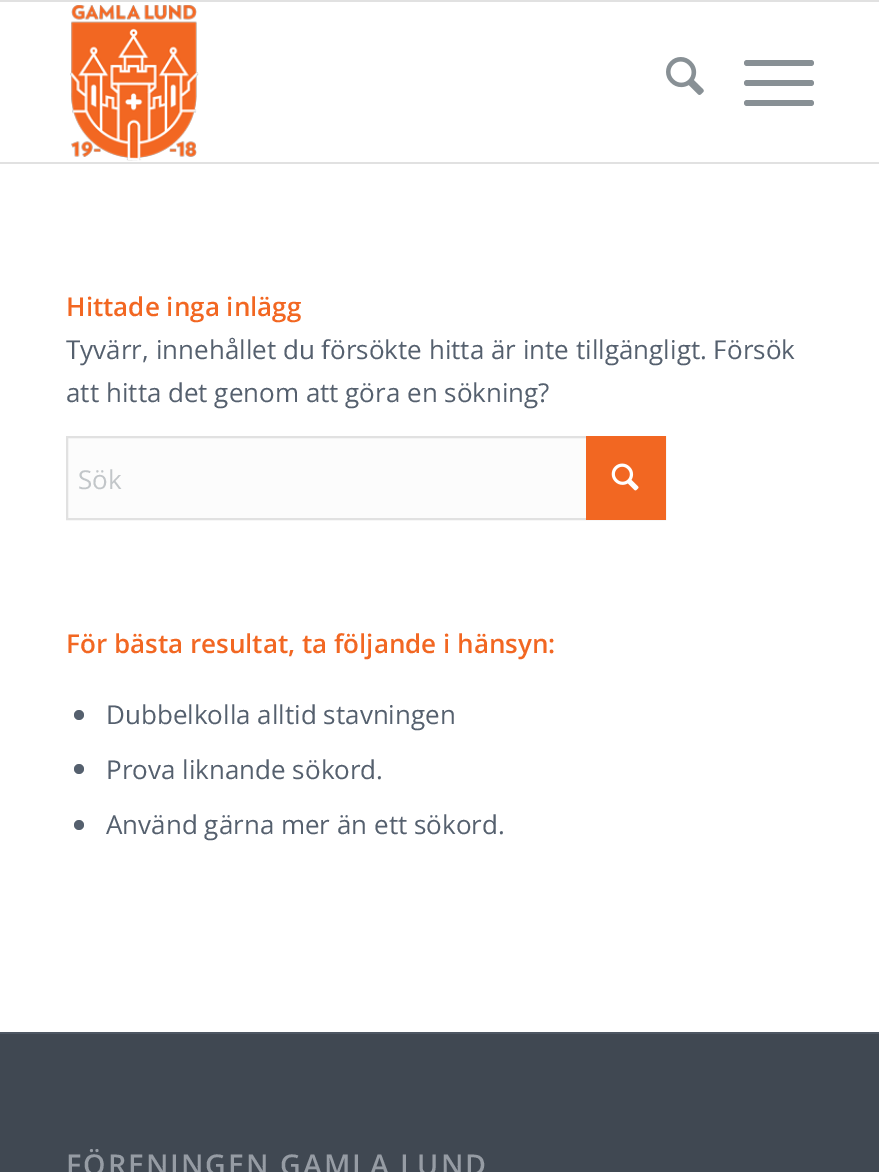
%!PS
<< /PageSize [879 1172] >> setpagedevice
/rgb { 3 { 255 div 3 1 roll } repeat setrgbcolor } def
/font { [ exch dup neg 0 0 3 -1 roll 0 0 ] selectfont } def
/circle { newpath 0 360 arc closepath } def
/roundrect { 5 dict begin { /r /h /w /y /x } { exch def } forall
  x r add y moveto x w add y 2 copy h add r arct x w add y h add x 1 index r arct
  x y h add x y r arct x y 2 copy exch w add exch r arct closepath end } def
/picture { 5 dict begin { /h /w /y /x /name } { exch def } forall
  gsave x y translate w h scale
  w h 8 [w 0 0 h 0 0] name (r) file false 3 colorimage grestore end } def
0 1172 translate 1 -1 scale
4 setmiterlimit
255 255 255 rgb
0 0 879 1172 rectfill
225 225 225 rgb
0 0 879 2 rectfill
0 162 879 2 rectfill
(img/1.rgb) 70 5 129 156 picture
(img/2.rgb) 666 57 38 38 picture
136 144 149 rgb
744 80 70 6 3 roundrect fill
744 60 70 6 3 roundrect fill
744 100 70 6 3 roundrect fill
252 252 252 rgb
68 438 518 80 rectfill
225 225 225 rgb
2 setlinewidth
67 437 598 82 rectstroke
242 103 34 rgb
586 436 80 84 rectfill
(img/3.rgb) 611 463 28 28 picture
85 96 110 rgb
79 715 5 circle fill
79 769 5 circle fill
79 825 5 circle fill
64 72 82 rgb
0 1034 879 138 rectfill
78 87 99 rgb
0 1032 879 2 rectfill
/OpenSans-SemiBold 26 font
242 103 34 rgb
66 316 moveto (Hittade inga inlägg) show
/OpenSans-Regular 26 font
85 96 110 rgb
66 359 moveto (Tyvärr, innehållet du försökte hitta är inte tillgängligt. Försök) show
66 402 moveto (att hitta det genom att göra en sökning?) show
194 198 201 rgb
78 489 moveto (Sök) show
/OpenSans-SemiBold 26 font
242 103 34 rgb
66 653 moveto (För bästa resultat, ta följande i hänsyn:) show
/OpenSans-Regular 26 font
85 96 110 rgb
[
  [(Dubbelkolla alltid stavningen) 106 724]
  [(Prova liknande sökord.) 106 779]
  [(Använd gärna mer än ett sökord.) 106 834]
] { aload pop moveto show } forall
/OpenSans-SemiBold 28.6 font
150 156 164 rgb
66 1175 moveto 2 0 (FÖRENINGEN GAMLA LUND) ashow
showpage
